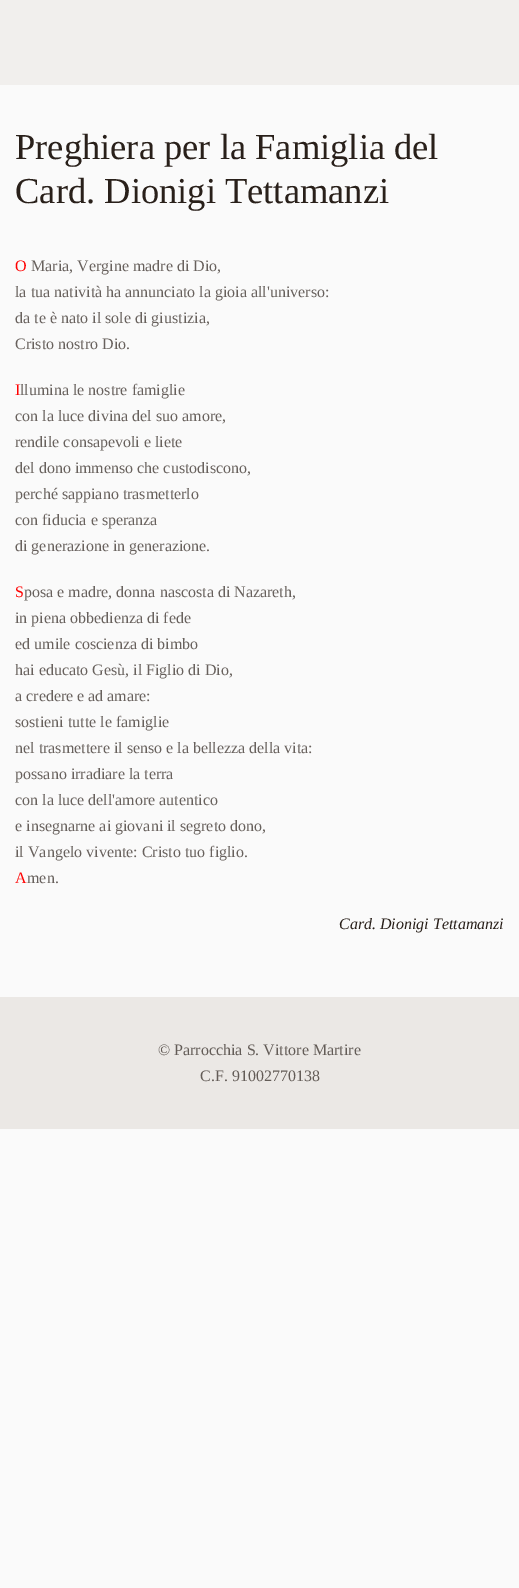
%!PS
<< /PageSize [519 1588] >> setpagedevice
/rgb { 3 { 255 div 3 1 roll } repeat setrgbcolor } def
/font { [ exch dup neg 0 0 3 -1 roll 0 0 ] selectfont } def
0 1588 translate 1 -1 scale
4 setmiterlimit
250 250 250 rgb
0 0 519 1588 rectfill
241 239 237 rgb
0 0 519 85 rectfill
235 232 229 rgb
0 997 519 132 rectfill
/LiberationSerif-Regular 36.5 font
41 32 26 rgb
15 159 moveto (Preghiera per la Famiglia del) show
15 203 moveto (Card. Dionigi Tettamanzi) show
/LiberationSerif-Regular 16 font
255 0 0 rgb
15 271 moveto (O) show
104 97 93 rgb
[
  [(Maria, Vergine madre di Dio,) 31 271]
  [(la tua natività ha annunciato la gioia all'universo:) 15 297]
  [(da te è nato il sole di giustizia,) 15 323]
  [(Cristo nostro Dio.) 15 349]
] { aload pop moveto show } forall
255 0 0 rgb
15 395 moveto (I) show
104 97 93 rgb
[
  [(llumina le nostre famiglie) 20 395]
  [(con la luce divina del suo amore,) 15 421]
  [(rendile consapevoli e liete) 15 447]
  [(del dono immenso che custodiscono,) 15 473]
  [(perché sappiano trasmetterlo) 15 499]
  [(con fiducia e speranza) 15 525]
  [(di generazione in generazione.) 15 551]
] { aload pop moveto show } forall
255 0 0 rgb
15 597 moveto (S) show
104 97 93 rgb
[
  [(posa e madre, donna nascosta di Nazareth,) 24 597]
  [(in piena obbedienza di fede) 15 623]
  [(ed umile coscienza di bimbo) 15 649]
  [(hai educato Gesù, il Figlio di Dio,) 15 675]
  [(a credere e ad amare:) 15 701]
  [(sostieni tutte le famiglie) 15 727]
  [(nel trasmettere il senso e la bellezza della vita:) 15 753]
  [(possano irradiare la terra) 15 779]
  [(con la luce dell'amore autentico) 15 805]
  [(e insegnarne ai giovani il segreto dono,) 15 831]
  [(il Vangelo vivente: Cristo tuo figlio.) 15 857]
] { aload pop moveto show } forall
255 0 0 rgb
15 883 moveto (A) show
104 97 93 rgb
27 883 moveto (men.) show
/LiberationSerif-Italic 16 font
41 32 26 rgb
339 929 moveto (Card. Dionigi Tettamanzi) show
/LiberationSerif-Regular 16 font
99 92 87 rgb
158 1055 moveto (© Parrocchia S. Vittore Martire) show
200 1081 moveto (C.F. 91002770138) show
showpage
